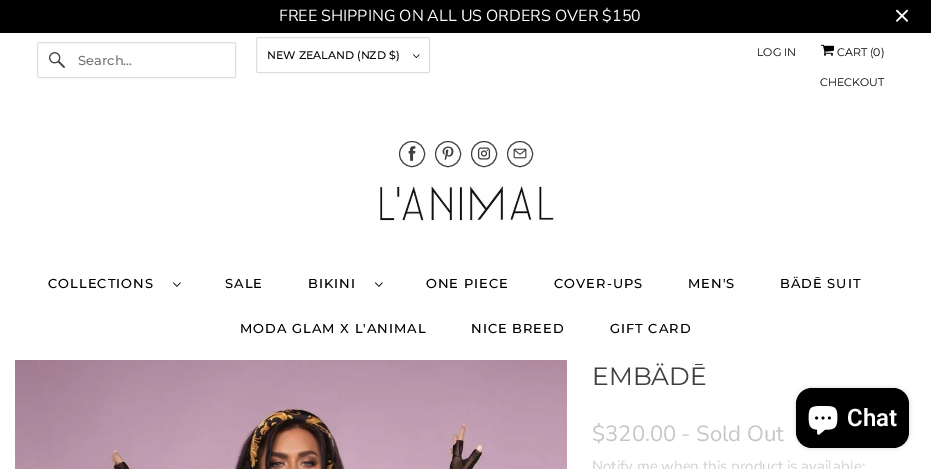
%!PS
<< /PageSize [931 469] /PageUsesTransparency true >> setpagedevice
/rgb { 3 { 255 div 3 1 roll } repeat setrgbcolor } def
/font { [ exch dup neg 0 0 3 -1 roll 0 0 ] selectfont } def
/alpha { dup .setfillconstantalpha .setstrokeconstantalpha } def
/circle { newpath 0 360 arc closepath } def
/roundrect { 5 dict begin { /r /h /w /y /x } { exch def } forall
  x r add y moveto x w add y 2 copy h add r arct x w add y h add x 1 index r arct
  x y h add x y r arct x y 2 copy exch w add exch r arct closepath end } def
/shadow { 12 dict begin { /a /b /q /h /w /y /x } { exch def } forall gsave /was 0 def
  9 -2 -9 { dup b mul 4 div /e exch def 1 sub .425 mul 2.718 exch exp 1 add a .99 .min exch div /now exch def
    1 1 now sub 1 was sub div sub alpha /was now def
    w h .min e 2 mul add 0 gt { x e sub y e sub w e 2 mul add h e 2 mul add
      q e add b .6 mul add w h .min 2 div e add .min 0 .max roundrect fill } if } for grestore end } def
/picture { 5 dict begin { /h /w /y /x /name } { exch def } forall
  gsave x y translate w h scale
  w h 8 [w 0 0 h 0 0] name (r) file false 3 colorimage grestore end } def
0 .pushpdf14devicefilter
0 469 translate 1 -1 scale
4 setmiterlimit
255 255 255 rgb
0 0 931 469 rectfill
0 0 0 rgb
0 0 931 33 rectfill
(img/1.rgb) 896 9 12 13 picture
223 223 223 rgb
37.5 42.5 198 35 1.5 roundrect stroke
(img/2.rgb) 49 52 16 16 picture
256.5 37.5 173 35 1.5 roundrect stroke
(img/3.rgb) 413 54 7 4 picture
(img/4.rgb) 821 44 13 12 picture
64 64 64 rgb
412 154 12.5 circle stroke
(img/5.rgb) 408 146 8 15 picture
448 154 12.5 circle stroke
(img/6.rgb) 442 146 12 15 picture
484 154 12.5 circle stroke
(img/7.rgb) 477 147 14 13 picture
520 154 12.5 circle stroke
(img/8.rgb) 513 148 14 11 picture
(img/9.rgb) 380 184 176 37 picture
(img/10.rgb) 173 282 8 5 picture
(img/10.rgb) 375 282 8 5 picture
(img/11.rgb) 15 360 552 109 picture
0 0 0 rgb
796 388 113 60 16 2.5 0.15 shadow
796 388 113 60 16 roundrect fill
(img/12.rgb) 808 406 30 29 picture
/NunitoSans-Regular 16 font
255 255 255 rgb
279 21 moveto (FREE SHIPPING ON ALL US ORDERS OVER $150) show
/Montserrat-Medium 13 font
117 117 117 rgb
78 65 moveto (Search...) show
/Montserrat-Medium 11 font
0 0 0 rgb
267 59 moveto (NEW ZEALAND \(NZD $\)) show
/Montserrat-Regular 11 font
[
  [(LOG IN) 757 56]
  [(CART \(0\)) 837 56]
  [(CHECKOUT) 820 86]
] { aload pop moveto show } forall
/Montserrat-Medium 13 font
48 288 moveto 1 0 (COLLECTIONS) ashow
225 288 moveto 1 0 (SALE) ashow
308 288 moveto 1 0 (BIKINI) ashow
426 288 moveto 1 0 (ONE PIECE) ashow
554 288 moveto 1 0 (COVER-UPS) ashow
688 288 moveto 1 0 (MEN'S) ashow
780 288 moveto 1 0 (BÄDĒ SUIT) ashow
240 333 moveto 1 0 (MODA GLAM X L'ANIMAL) ashow
471 333 moveto 1 0 (NICE BREED) ashow
610 333 moveto 1 0 (GIFT CARD) ashow
/Montserrat-Regular 25 font
64 64 64 rgb
592 385 moveto (EMBÄDĒ) show
/NunitoSans-Regular 22 font
198 198 198 rgb
592 441 moveto ($320.00) show
681 441 moveto (- Sold Out) show
/NunitoSans-Regular 15 font
207 207 207 rgb
592 471 moveto (Notify me when this product is available:) show
/Roboto-SemiBold 24 font
255 255 255 rgb
847 426 moveto (Chat) show
.poppdf14devicefilter showpage
